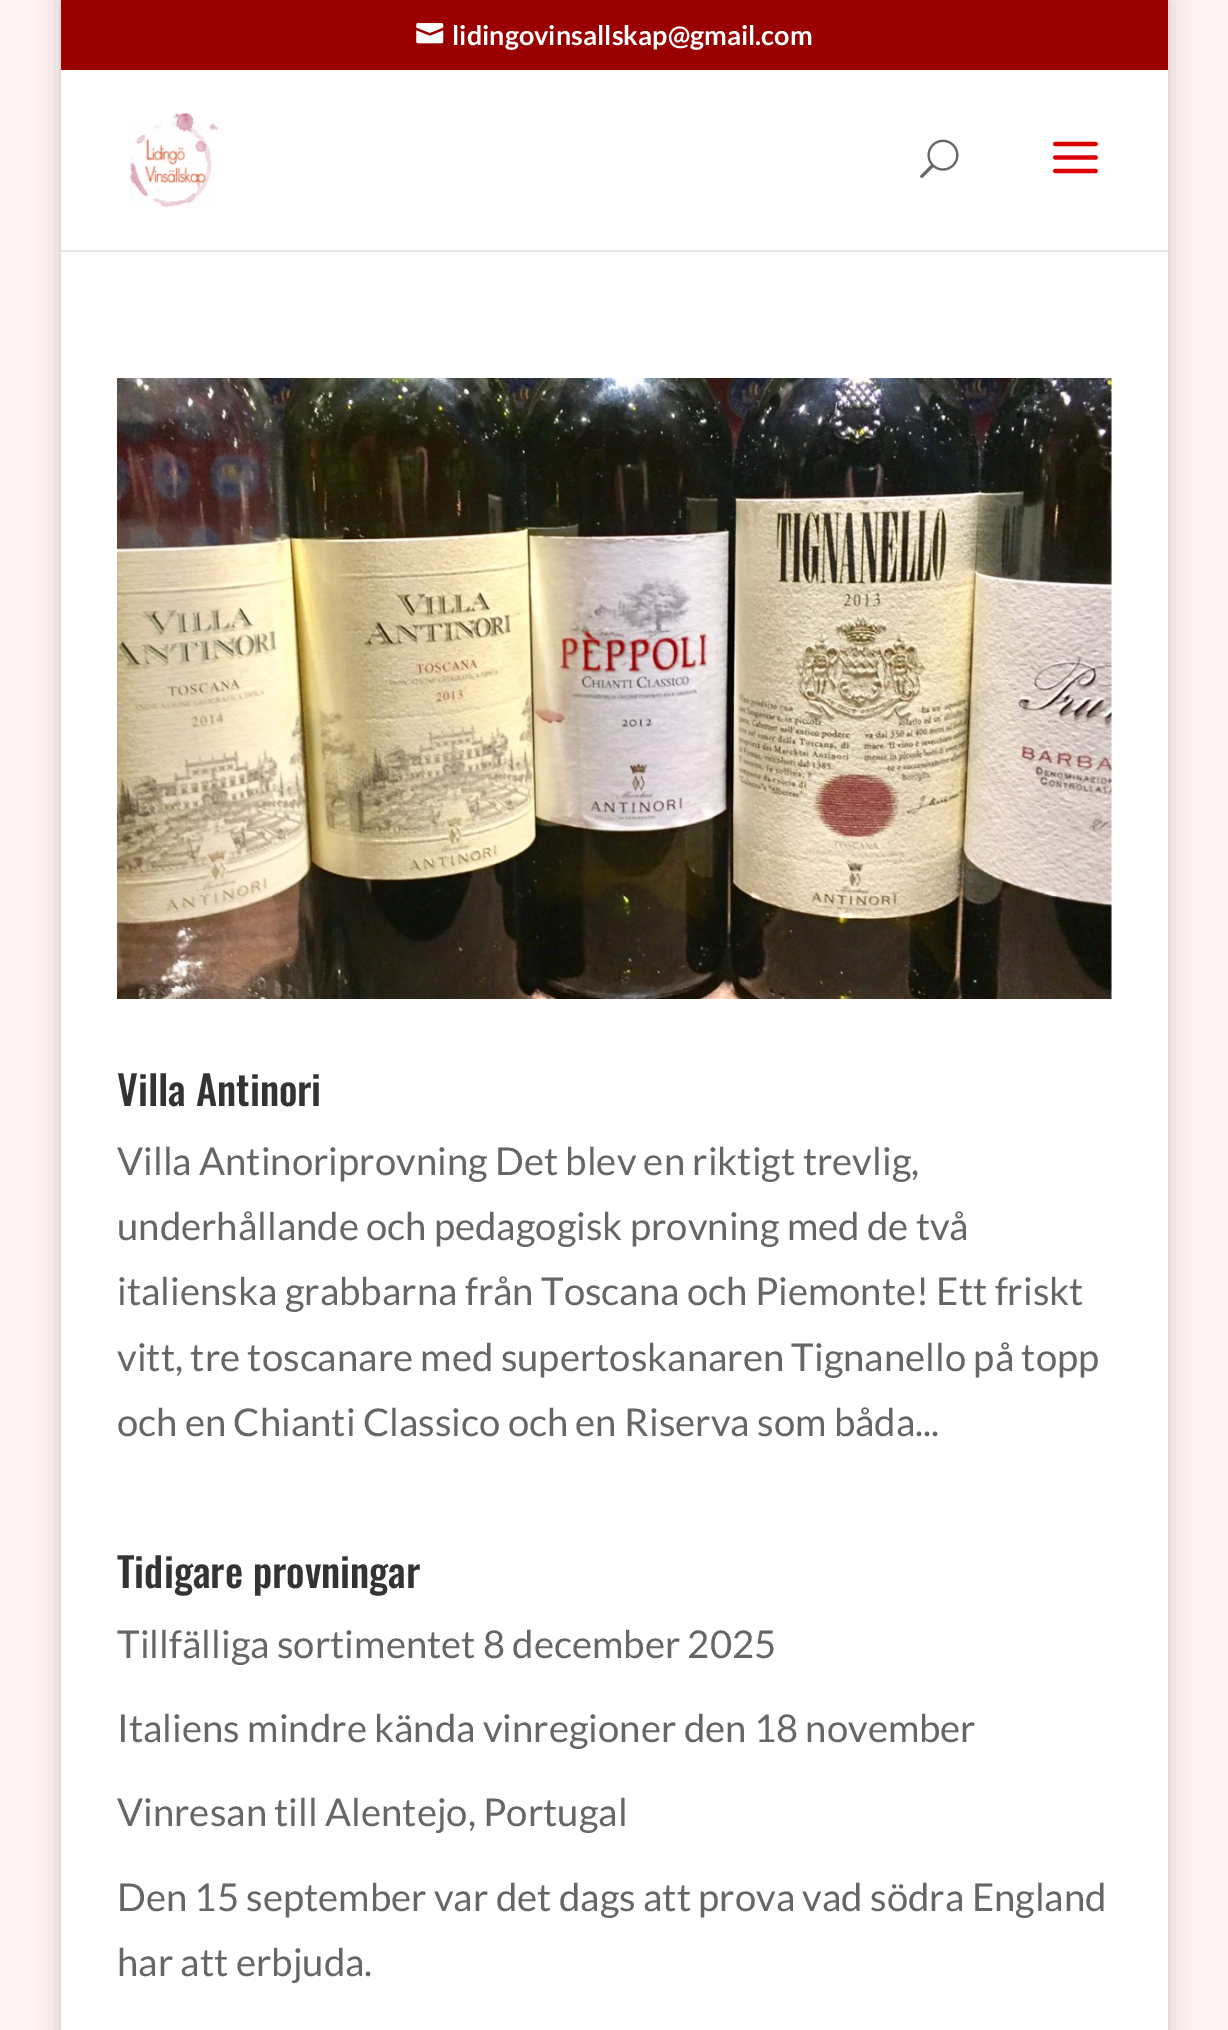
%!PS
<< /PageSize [1228 2030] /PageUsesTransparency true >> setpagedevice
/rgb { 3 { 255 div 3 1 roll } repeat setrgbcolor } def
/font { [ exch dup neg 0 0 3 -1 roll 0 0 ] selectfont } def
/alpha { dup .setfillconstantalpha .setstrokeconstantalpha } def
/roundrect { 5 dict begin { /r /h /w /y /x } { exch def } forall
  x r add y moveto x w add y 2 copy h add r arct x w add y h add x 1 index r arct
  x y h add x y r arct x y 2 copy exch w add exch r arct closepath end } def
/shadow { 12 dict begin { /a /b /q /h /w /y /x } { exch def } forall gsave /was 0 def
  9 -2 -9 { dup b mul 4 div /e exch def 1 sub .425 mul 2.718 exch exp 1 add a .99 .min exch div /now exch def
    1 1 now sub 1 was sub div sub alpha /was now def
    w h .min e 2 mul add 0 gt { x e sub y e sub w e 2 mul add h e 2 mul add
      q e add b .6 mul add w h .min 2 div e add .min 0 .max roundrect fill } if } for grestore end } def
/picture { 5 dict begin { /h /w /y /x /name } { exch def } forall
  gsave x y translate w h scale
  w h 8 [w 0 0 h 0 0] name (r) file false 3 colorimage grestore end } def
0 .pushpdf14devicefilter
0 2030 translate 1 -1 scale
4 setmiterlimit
255 242 242 rgb
0 0 1228 2030 rectfill
0 0 0 rgb
61 0 1107 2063 0 11 0.2 shadow
155 0 0 rgb
61 0 1107 70 rectfill
(img/1.rgb) 416 23 28 21 picture
230 230 230 rgb
61 250 moveto 61 252 lineto 1168 252 lineto 1168 72 lineto 1168 250 lineto closepath fill
255 255 255 rgb
61 70 1107 180 rectfill
(img/2.rgb) 129 112 90 96 picture
(img/3.rgb) 920 139 39 39 picture
(img/4.rgb) 1053 141 45 33 picture
61 252 1107 1778 rectfill
(img/5.rgb) 117 378 995 621 picture
/Lato-Bold 27 font
452 45 moveto (lidingovinsallskap@gmail.com) show
/Oswald-Medium 40.5 font
51 51 51 rgb
117 1106 moveto (Villa Antinori) show
/Lato-Regular 38.25 font
102 102 102 rgb
[
  [(Villa Antinoriprovning Det blev en riktigt trevlig,) 117 1175]
  [(underhållande och pedagogisk provning med de två) 117 1240]
  [(italienska grabbarna från Toscana och Piemonte! Ett friskt) 117 1305]
  [(vitt, tre toscanare med supertoskanaren Tignanello på topp) 117 1371]
  [(och en Chianti Classico och en Riserva som båda...) 117 1436]
] { aload pop moveto show } forall
/Oswald-Medium 40.5 font
51 51 51 rgb
117 1588 moveto (Tidigare provningar) show
/Lato-Regular 38.25 font
102 102 102 rgb
[
  [(Tillfälliga sortimentet 8 december 2025) 117 1658]
  [(Italiens mindre kända vinregioner den 18 november) 117 1742]
  [(Vinresan till Alentejo, Portugal) 117 1826]
  [(Den 15 september var det dags att prova vad södra England) 117 1911]
  [(har att erbjuda.) 117 1976]
] { aload pop moveto show } forall
.poppdf14devicefilter showpage
